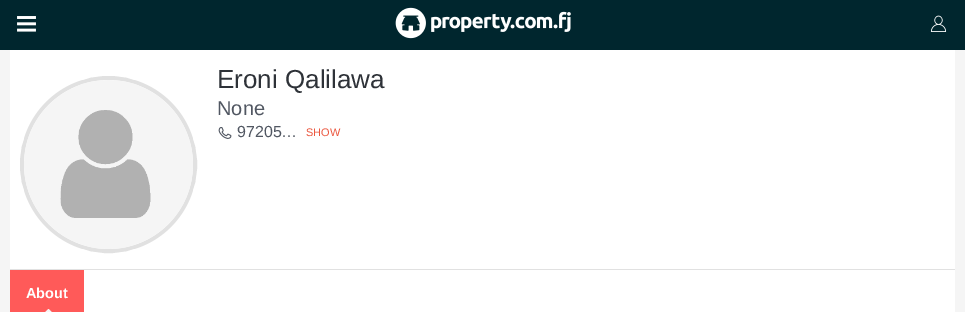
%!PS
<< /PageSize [965 312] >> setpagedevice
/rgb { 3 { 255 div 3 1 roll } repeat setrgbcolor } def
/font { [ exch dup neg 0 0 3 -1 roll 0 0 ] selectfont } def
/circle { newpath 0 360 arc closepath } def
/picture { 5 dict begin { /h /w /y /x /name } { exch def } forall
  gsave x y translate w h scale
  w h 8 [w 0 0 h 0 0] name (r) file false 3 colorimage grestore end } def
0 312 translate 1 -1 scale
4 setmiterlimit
245 245 245 rgb
0 0 965 312 rectfill
0 38 46 rgb
0 0 965 50 rectfill
(img/1.rgb) 17 16 19 16 picture
(img/2.rgb) 395 7 176 32 picture
(img/3.rgb) 930 15 17 17 picture
255 255 255 rgb
10 50 945 262 rectfill
225 225 225 rgb
4 setlinewidth
108.5 164.5 86.5 circle stroke
(img/4.rgb) 24 80 169 169 picture
(img/5.rgb) 218 127 14 12 picture
10 269 945 1 rectfill
255 90 89 rgb
10 270 74 42 rectfill
245 245 245 rgb
48.5 309 moveto 57 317 lineto 48.5 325.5 lineto 40 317 lineto closepath fill
/LiberationSans-Regular 26 font
46 50 56 rgb
217 88 moveto (Eroni Qalilawa) show
/LiberationSans-Regular 20 font
81 87 98 rgb
217 115 moveto (None) show
/LiberationSans-Regular 16 font
237 137 moveto (97205…) show
/LiberationSans-Regular 11 font
236 88 64 rgb
306 136 moveto (SHOW) show
/LiberationSans-Bold 14.5 font
255 255 255 rgb
26 298 moveto (About) show
showpage
